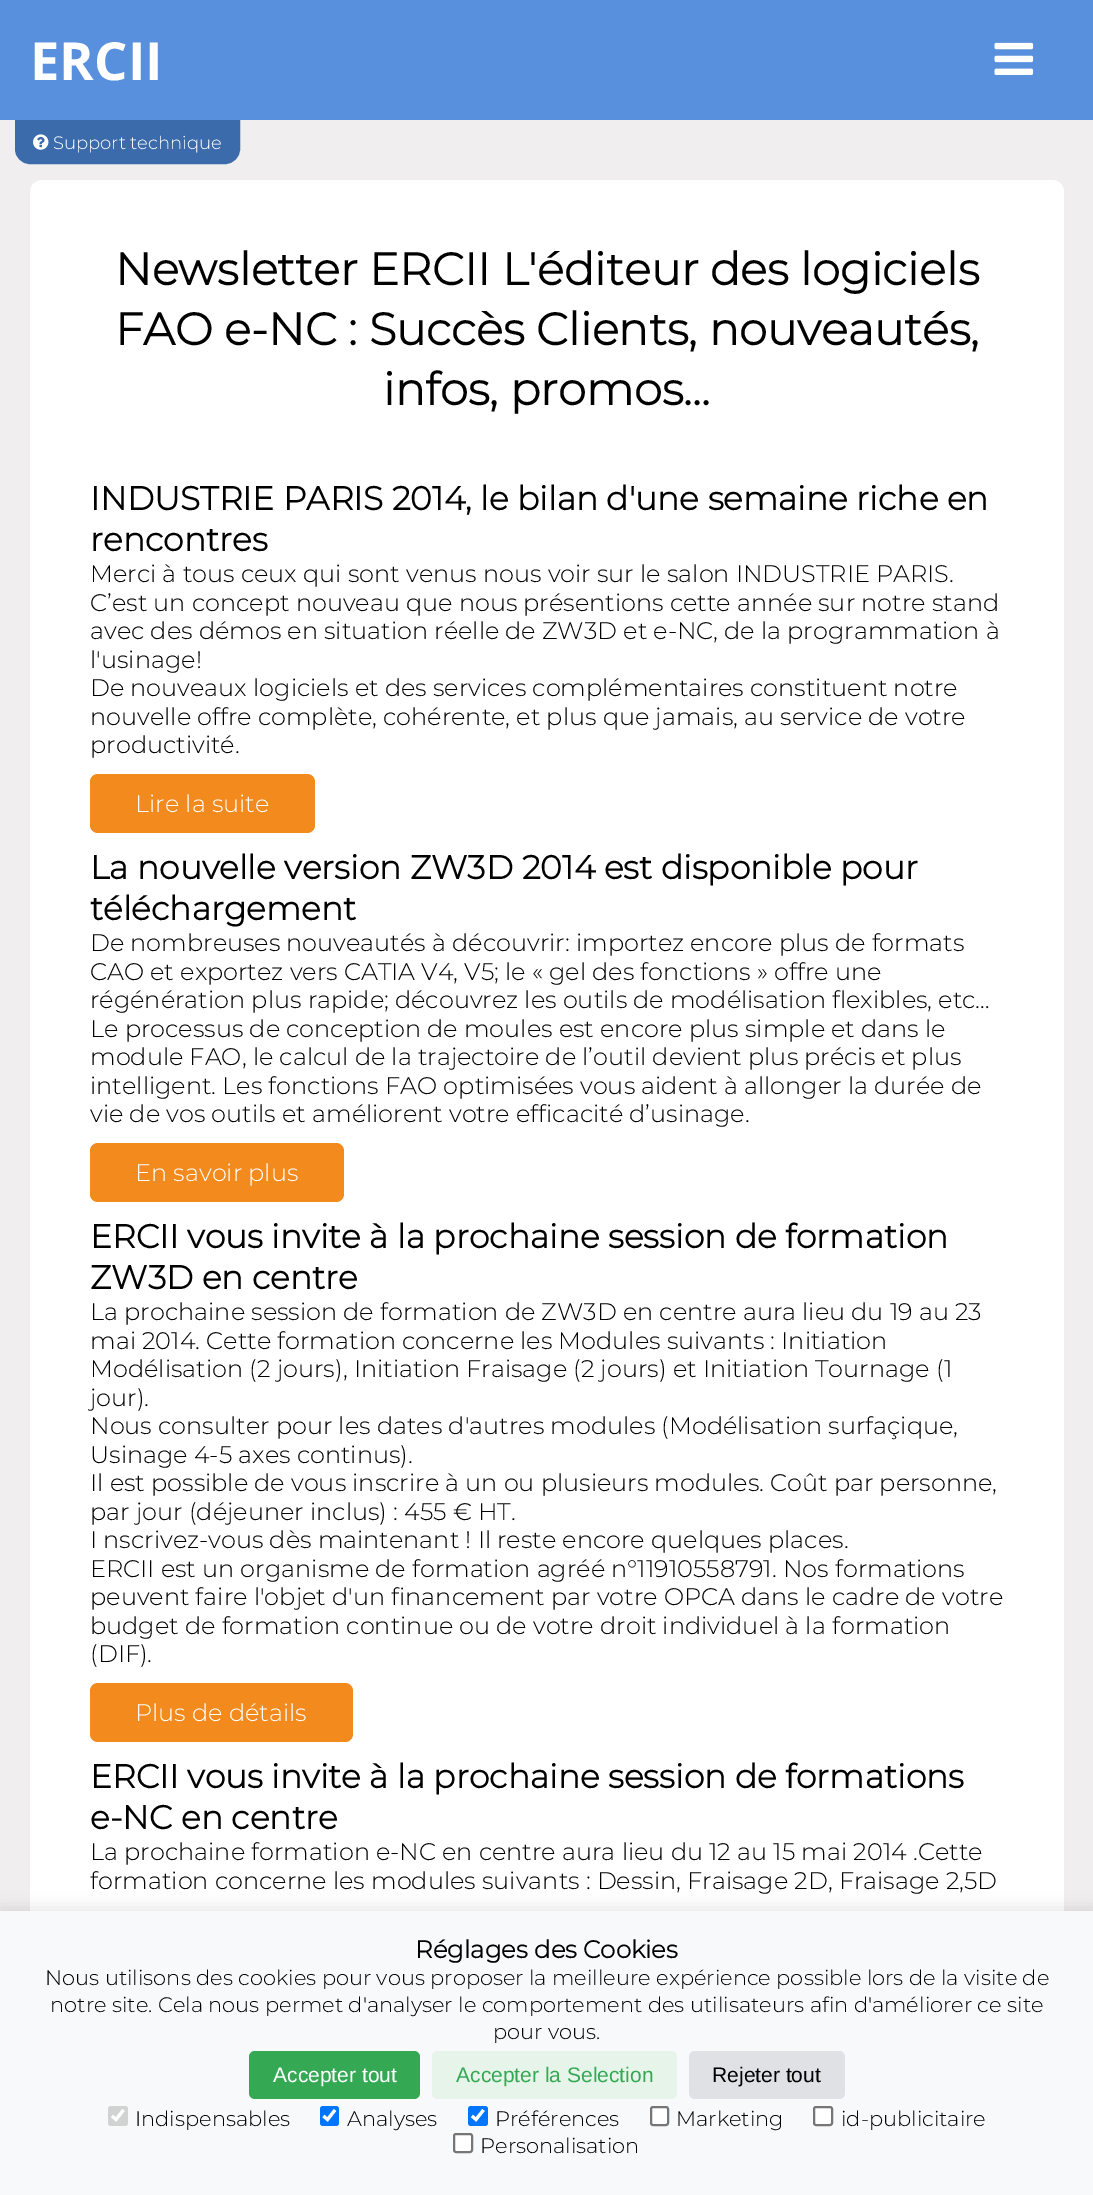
%!PS
<< /PageSize [1093 2195] /PageUsesTransparency true >> setpagedevice
/rgb { 3 { 255 div 3 1 roll } repeat setrgbcolor } def
/font { [ exch dup neg 0 0 3 -1 roll 0 0 ] selectfont } def
/alpha { dup .setfillconstantalpha .setstrokeconstantalpha } def
/roundrect { 5 dict begin { /r /h /w /y /x } { exch def } forall
  x r add y moveto x w add y 2 copy h add r arct x w add y h add x 1 index r arct
  x y h add x y r arct x y 2 copy exch w add exch r arct closepath end } def
/shadow { 12 dict begin { /a /b /q /h /w /y /x } { exch def } forall gsave /was 0 def
  9 -2 -9 { dup b mul 4 div /e exch def 1 sub .425 mul 2.718 exch exp 1 add a .99 .min exch div /now exch def
    1 1 now sub 1 was sub div sub alpha /was now def
    w h .min e 2 mul add 0 gt { x e sub y e sub w e 2 mul add h e 2 mul add
      q e add b .6 mul add w h .min 2 div e add .min 0 .max roundrect fill } if } for grestore end } def
/picture { 5 dict begin { /h /w /y /x /name } { exch def } forall
  gsave x y translate w h scale
  w h 8 [w 0 0 h 0 0] name (r) file false 3 colorimage grestore end } def
0 .pushpdf14devicefilter
0 2195 translate 1 -1 scale
4 setmiterlimit
240 238 238 rgb
0 0 1093 2195 rectfill
88 144 222 rgb
0 0 1093 120 rectfill
(img/1.rgb) 994 42 40 33 picture
60 107 172 rgb
16.5 121.5 moveto 238.5 121.5 lineto 238.5 149 lineto 238.5 156.5 232.5 162.5 225 162.5 curveto 30 162.5 lineto 22.5 162.5 16.5 156.5 16.5 149 curveto closepath gsave fill grestore
3 setlinewidth
stroke
(img/2.rgb) 33 134 16 16 picture
255 255 255 rgb
30 180 1034 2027 12 roundrect fill
243 138 30 rgb
90 774 225 59 8 roundrect fill
90 1143 254 59 8 roundrect fill
90 1683 263 59 8 roundrect fill
0 0 0 rgb
0 1908 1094 285 0 7.5 0.1 shadow
248 249 250 rgb
0 1911 1093 284 rectfill
52 168 83 rgb
249 2051 171 48 6 roundrect fill
230 244 234 rgb
432 2051 245 48 6 roundrect fill
223 225 229 rgb
689 2051 156 48 6 roundrect fill
209 210 210 rgb
108 2106 20 20 3 roundrect fill
255 255 255 rgb
3.1 setlinewidth
112 2116 moveto 116 2119.5 lineto 123.5 2110 lineto stroke
0 117 255 rgb
320 2106 19 20 3 roundrect fill
255 255 255 rgb
323.5 2116 moveto 327.5 2119.5 lineto 335 2110 lineto stroke
0 117 255 rgb
468 2106 20 20 3 roundrect fill
255 255 255 rgb
472 2116 moveto 476 2119.5 lineto 483.5 2110 lineto stroke
651 2107 17 18 2 roundrect gsave fill grestore
118 118 118 rgb
2 setlinewidth
stroke
255 255 255 rgb
814 2107 18 18 2 roundrect gsave fill grestore
118 118 118 rgb
stroke
255 255 255 rgb
454 2134 18 18 2 roundrect gsave fill grestore
118 118 118 rgb
stroke
/OpenSans-Bold 52.5 font
255 255 255 rgb
30 80 moveto (ERCII) show
/Montserrat-Thin 18 font
53 149 moveto (Support technique) show
/Montserrat-Bold 45 font
0 0 0 rgb
[
  [(Newsletter ERCII L'éditeur des logiciels) 115 285]
  [(FAO e-NC : Succès Clients, nouveautés,) 115 345]
  [(infos, promos...) 383 405]
] { aload pop moveto show } forall
/Montserrat-Bold 33 font
90 510 moveto (INDUSTRIE PARIS 2014, le bilan d'une semaine riche en) show
90 551 moveto (rencontres) show
/Montserrat-Thin 24 font
[
  [(Merci à tous ceux qui sont venus nous voir sur le salon INDUSTRIE PARIS.) 90 582]
  [(C’est un concept nouveau que nous présentions cette année sur notre stand) 90 611]
  [(avec des démos en situation réelle de ZW3D et e-NC, de la programmation à) 90 639]
  [(l'usinage!) 90 668]
  [(De nouveaux logiciels et des services complémentaires constituent notre) 90 696]
  [(nouvelle offre complète, cohérente, et plus que jamais, au service de votre) 90 725]
  [(productivité.) 90 753]
] { aload pop moveto show } forall
255 255 255 rgb
135 812 moveto (Lire la suite) show
/Montserrat-Bold 33 font
0 0 0 rgb
90 879 moveto (La nouvelle version ZW3D 2014 est disponible pour) show
90 920 moveto (téléchargement) show
/Montserrat-Thin 24 font
[
  [(De nombreuses nouveautés à découvrir: importez encore plus de formats) 90 951]
  [(CAO et exportez vers CATIA V4, V5; le « gel des fonctions » offre une) 90 980]
  [(régénération plus rapide; découvrez les outils de modélisation flexibles, etc…) 90 1008]
  [(Le processus de conception de moules est encore plus simple et dans le) 90 1037]
  [(module FAO, le calcul de la trajectoire de l’outil devient plus précis et plus) 90 1065]
  [(intelligent. Les fonctions FAO optimisées vous aident à allonger la durée de) 90 1094]
  [(vie de vos outils et améliorent votre efficacité d’usinage.) 90 1122]
] { aload pop moveto show } forall
255 255 255 rgb
135 1181 moveto (En savoir plus) show
/Montserrat-Bold 33 font
0 0 0 rgb
90 1248 moveto (ERCII vous invite à la prochaine session de formation) show
90 1289 moveto (ZW3D en centre) show
/Montserrat-Thin 24 font
[
  [(La prochaine session de formation de ZW3D en centre aura lieu du 19 au 23) 90 1320]
  [(mai 2014. Cette formation concerne les Modules suivants : Initiation) 90 1349]
  [(Modélisation \(2 jours\), Initiation Fraisage \(2 jours\) et Initiation Tournage \(1) 90 1377]
  [(jour\).) 90 1406]
  [(Nous consulter pour les dates d'autres modules \(Modélisation surfaçique,) 90 1434]
  [(Usinage 4-5 axes continus\).) 90 1463]
  [(Il est possible de vous inscrire à un ou plusieurs modules. Coût par personne,) 90 1491]
  [(par jour \(déjeuner inclus\) : 455 € HT.) 90 1520]
  [(I nscrivez-vous dès maintenant ! Il reste encore quelques places.) 90 1548]
  [(ERCII est un organisme de formation agréé n°11910558791. Nos formations) 90 1577]
  [(peuvent faire l'objet d'un financement par votre OPCA dans le cadre de votre) 90 1605]
  [(budget de formation continue ou de votre droit individuel à la formation) 90 1634]
  [(\(DIF\).) 90 1662]
] { aload pop moveto show } forall
255 255 255 rgb
135 1721 moveto (Plus de détails) show
/Montserrat-Bold 33 font
0 0 0 rgb
90 1788 moveto (ERCII vous invite à la prochaine session de formations) show
90 1829 moveto (e-NC en centre) show
/Montserrat-Thin 24 font
90 1860 moveto (La prochaine formation e-NC en centre aura lieu du 12 au 15 mai 2014 .Cette) show
90 1889 moveto (formation concerne les modules suivants : Dessin, Fraisage 2D, Fraisage 2,5D) show
/Montserrat-Bold 24.5 font
415 1958 moveto (Réglages des Cookies) show
/Montserrat-Thin 21 font
[
  [(Nous utilisons des cookies pour vous proposer la meilleure expérience possible lors de la visite de) 45 1985]
  [(notre site. Cela nous permet d'analyser le comportement des utilisateurs afin d'améliorer ce site) 50 2012]
  [(pour vous.) 493 2039]
] { aload pop moveto show } forall
/LiberationSans-Regular 21 font
255 255 255 rgb
273 2082 moveto (Accepter tout) show
52 168 83 rgb
456 2082 moveto (Accepter la Selection) show
0 0 0 rgb
712 2082 moveto (Rejeter tout) show
/Montserrat-Thin 21 font
[
  [(Indispensables) 135 2126]
  [(Analyses) 347 2126]
  [(Préférences) 495 2126]
  [(Marketing) 676 2126]
  [(id-publicitaire) 841 2126]
  [(Personalisation) 480 2153]
] { aload pop moveto show } forall
.poppdf14devicefilter showpage
